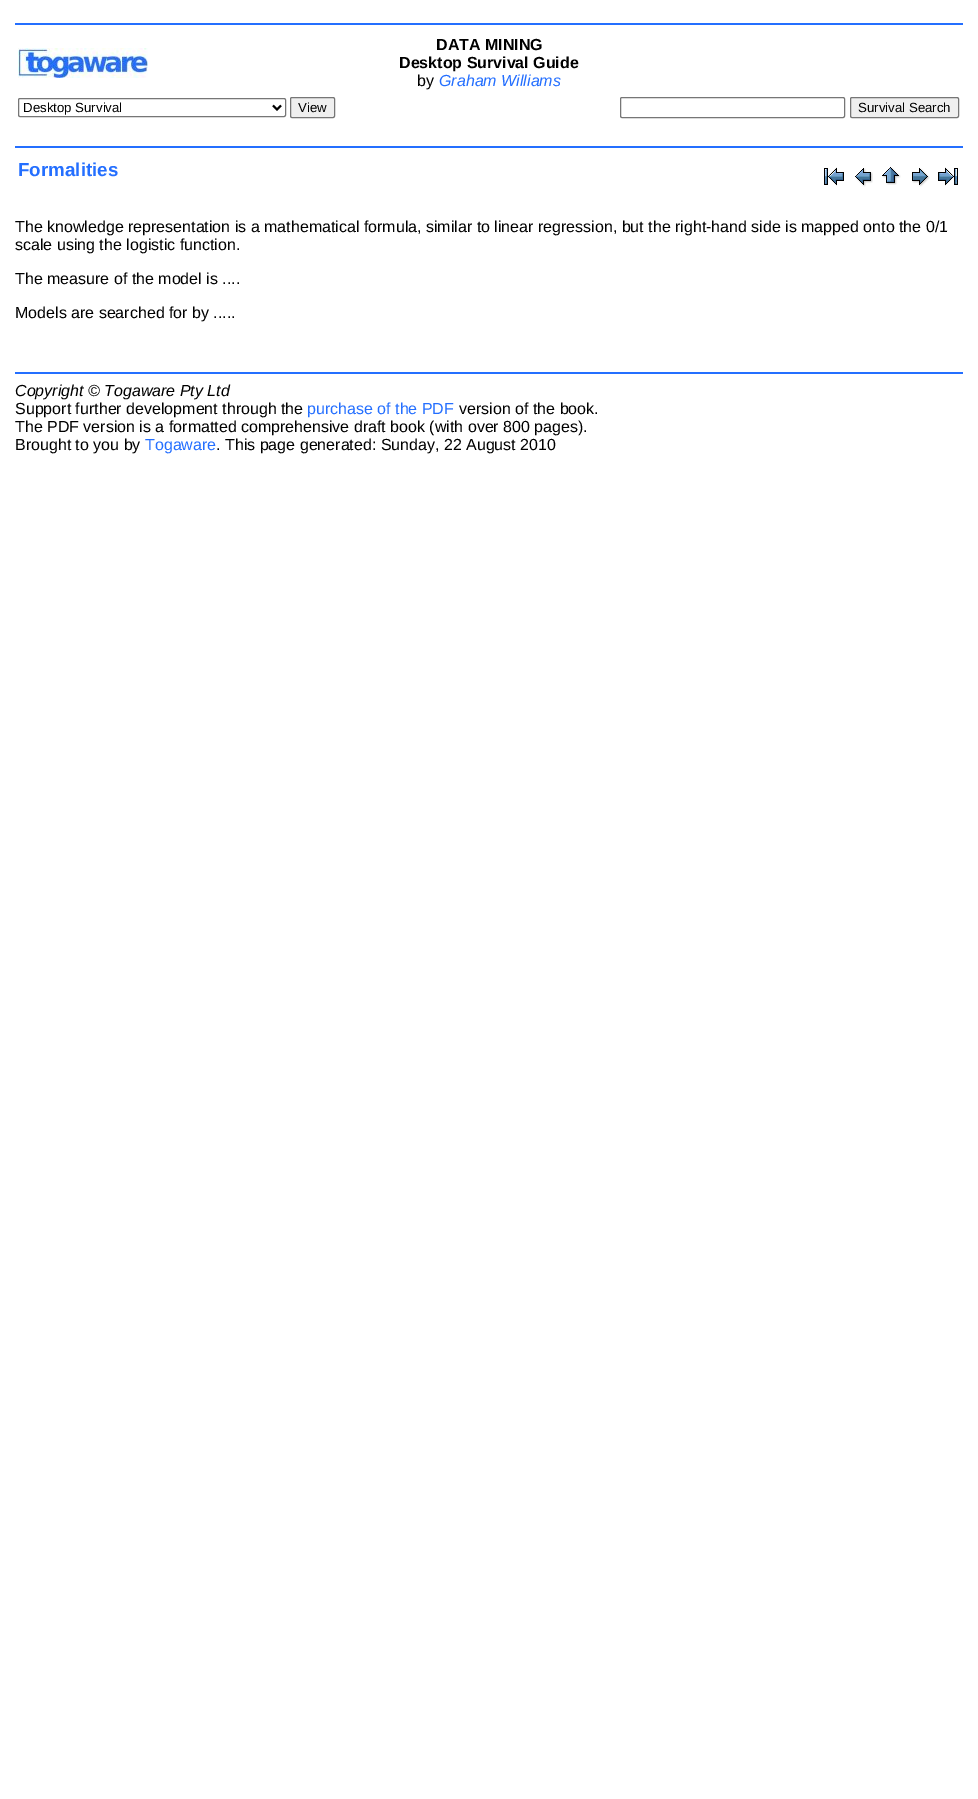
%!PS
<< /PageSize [978 1799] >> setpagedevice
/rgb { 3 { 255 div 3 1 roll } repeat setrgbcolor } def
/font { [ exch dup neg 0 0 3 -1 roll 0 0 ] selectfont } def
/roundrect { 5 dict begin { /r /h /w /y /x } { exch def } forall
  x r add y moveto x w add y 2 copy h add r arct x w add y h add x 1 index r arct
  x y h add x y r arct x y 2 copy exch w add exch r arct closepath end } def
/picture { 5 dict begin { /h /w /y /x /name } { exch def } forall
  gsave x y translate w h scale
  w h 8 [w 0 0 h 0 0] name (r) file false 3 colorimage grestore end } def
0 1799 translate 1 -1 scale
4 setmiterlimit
255 255 255 rgb
0 0 978 1799 rectfill
36 111 255 rgb
15 23 948 2 rectfill
(img/1.rgb) 18 48 130 30 picture
118 118 118 rgb
18.5 98.5 267 18 1.5 roundrect stroke
0 0 0 rgb
2 setlinewidth
273 105.5 moveto 277 109.5 lineto 281 105.5 lineto stroke
239 239 239 rgb
290.5 97.5 44 20 1.5 roundrect gsave fill grestore
118 118 118 rgb
1 setlinewidth
stroke
620.5 97.5 224 20 1.5 roundrect stroke
239 239 239 rgb
850.5 97.5 108 20 1.5 roundrect gsave fill grestore
118 118 118 rgb
stroke
36 111 255 rgb
15 146 948 2 rectfill
(img/2.rgb) 824 167 20 19 picture
(img/3.rgb) 855 168 18 19 picture
(img/4.rgb) 882 167 19 18 picture
(img/5.rgb) 912 168 18 19 picture
(img/6.rgb) 938 167 20 19 picture
15 372 948 2 rectfill
/LiberationSans-Bold 16 font
0 0 0 rgb
436 50 moveto (DATA MINING) show
399 68 moveto (Desktop Survival Guide) show
/LiberationSans-Regular 16 font
417 86 moveto (by) show
/LiberationSans-Italic 16 font
36 111 255 rgb
439 86 moveto (Graham Williams) show
/LiberationSans-Regular 13.25 font
0 0 0 rgb
[
  [(Desktop Survival) 23 112]
  [(View) 298 112]
  [(Survival Search) 858 112]
] { aload pop moveto show } forall
/LiberationSans-Bold 18.75 font
36 111 255 rgb
18 176 moveto (Formalities) show
/LiberationSans-Regular 16 font
0 0 0 rgb
[
  [(The knowledge representation is a mathematical formula, similar to linear regression, but the right-hand side is mapped onto the 0/1) 15 232]
  [(scale using the logistic function.) 15 250]
  [(The measure of the model is ....) 15 284]
  [(Models are searched for by .....) 15 318]
] { aload pop moveto show } forall
/LiberationSans-Italic 16 font
15 396 moveto (Copyright © Togaware Pty Ltd) show
/LiberationSans-Regular 16 font
15 414 moveto (Support further development through the) show
36 111 255 rgb
307 414 moveto (purchase of the PDF) show
0 0 0 rgb
[
  [(version of the book.) 459 414]
  [(The PDF version is a formatted comprehensive draft book \(with over 800 pages\).) 15 432]
  [(Brought to you by) 15 450]
] { aload pop moveto show } forall
36 111 255 rgb
145 450 moveto (Togaware) show
0 0 0 rgb
216 450 moveto (. This page generated: Sunday, 22 August 2010) show
showpage
